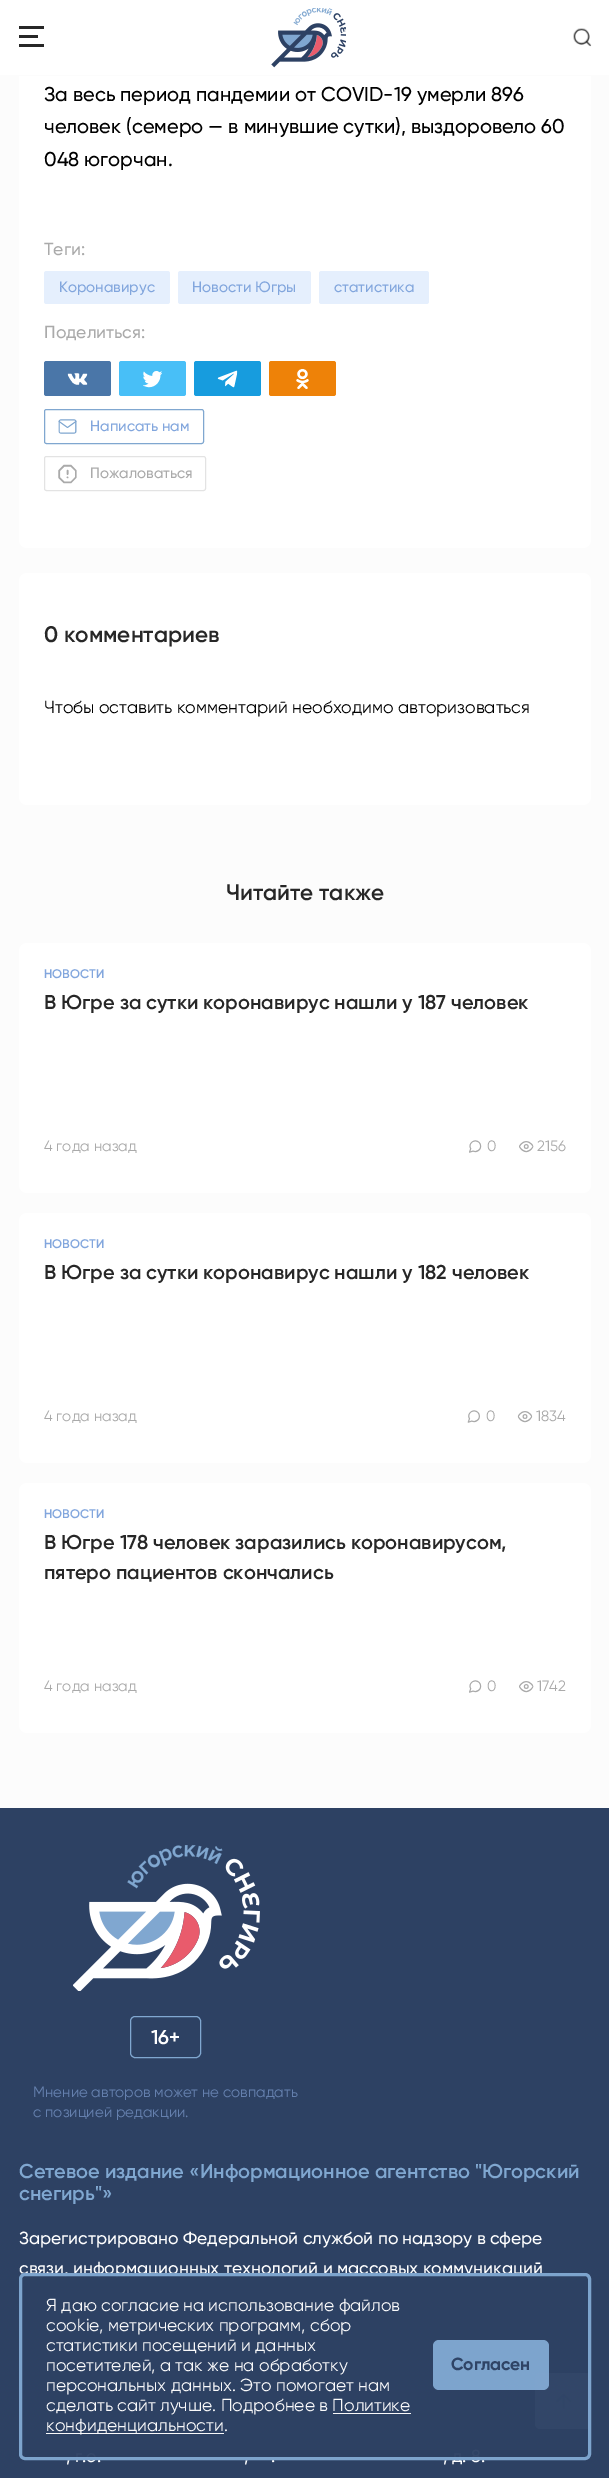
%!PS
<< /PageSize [609 2478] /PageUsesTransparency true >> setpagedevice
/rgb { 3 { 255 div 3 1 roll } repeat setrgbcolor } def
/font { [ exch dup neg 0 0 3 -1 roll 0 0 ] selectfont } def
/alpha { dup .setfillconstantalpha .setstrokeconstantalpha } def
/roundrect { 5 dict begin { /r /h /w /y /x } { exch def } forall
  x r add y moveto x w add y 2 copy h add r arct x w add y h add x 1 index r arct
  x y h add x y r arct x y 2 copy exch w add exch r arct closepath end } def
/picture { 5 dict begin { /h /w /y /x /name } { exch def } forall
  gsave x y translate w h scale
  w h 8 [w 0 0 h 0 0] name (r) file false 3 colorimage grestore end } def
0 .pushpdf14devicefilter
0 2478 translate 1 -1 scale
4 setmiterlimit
252 252 252 rgb
0 0 609 2478 rectfill
255 255 255 rgb
19 -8 572 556 8 roundrect fill
[
  [0 0 609 75 255 255 255]
  [19 75 572 1 252 252 252]
  [19 26 25 3 39 39 39]
  [19 35 19 3 39 39 39]
  [19 44 25 3 39 39 39]
] { aload pop rgb rectfill } forall
(img/1.rgb) 271 8 75 60 picture
(img/2.rgb) 573 28 19 19 picture
229 239 253 rgb
44 271 126 33 2.5 roundrect fill
178 271 133 33 2.5 roundrect fill
319 271 110 33 2.5 roundrect fill
74 118 168 rgb
44 361 67 35 2.5 roundrect fill
(img/3.rgb) 67 373 21 12 picture
72 191 247 rgb
119 361 67 35 2.5 roundrect fill
(img/4.rgb) 143 371 19 17 picture
23 156 222 rgb
194 361 67 35 2.5 roundrect fill
(img/5.rgb) 217 370 21 18 picture
238 130 8 rgb
269 361 67 35 2.5 roundrect fill
(img/6.rgb) 296 369 13 20 picture
128 167 208 rgb
44.5 409.5 159 34 2 roundrect stroke
(img/7.rgb) 58 419 19 15 picture
227 227 227 rgb
44.5 456.5 161 34 2 roundrect stroke
(img/8.rgb) 58 464 19 20 picture
255 255 255 rgb
19 573 572 232 8 roundrect fill
19 943 572 250 8 roundrect fill
(img/9.rgb) 469 1140 13 13 picture
(img/10.rgb) 519 1141 15 12 picture
19 1213 572 250 8 roundrect fill
(img/11.rgb) 467 1410 13 13 picture
(img/12.rgb) 517 1411 16 12 picture
19 1483 572 250 8 roundrect fill
(img/9.rgb) 469 1680 13 13 picture
(img/10.rgb) 519 1681 15 12 picture
45 65 99 rgb
0 1808 609 670 rectfill
214 231 248 rgb
535 2373 56 56 5 roundrect fill
(img/13.rgb) 556 2393 16 16 picture
(img/14.rgb) 73 1845 187 146 picture
128 167 208 rgb
130.5 2016.5 70 41 4.5 roundrect stroke
/Gilroy-Medium 20 font
0 0 0 rgb
[
  [(За весь период пандемии от COVID-19 умерли 896) 44 101]
  [(человек \(семеро — в минувшие сутки\), выздоровело 60) 44 133]
  [(048 югорчан.) 44 166]
] { aload pop moveto show } forall
/Gilroy-Medium 17.5 font
170 170 170 rgb
44 255 moveto (Теги:) show
/Gilroy-Medium 15 font
130 166 221 rgb
[
  [(Коронавирус) 59 292]
  [(Новости Югры) 192 292]
  [(статистика) 334 292]
] { aload pop moveto show } forall
/Gilroy-Medium 17.5 font
170 170 170 rgb
44 338 moveto (Поделиться:) show
/Gilroy-Medium 15 font
130 166 221 rgb
90 431 moveto (Написать нам) show
170 170 170 rgb
90 478 moveto (Пожаловаться) show
/Gilroy-SemiBold 22.5 font
39 39 39 rgb
44 642 moveto (0 комментариев) show
/Gilroy-Regular 17.5 font
0 0 0 rgb
44 713 moveto (Чтобы оставить комментарий необходимо авторизоваться) show
/Gilroy-SemiBold 22.5 font
39 39 39 rgb
226 900 moveto (Читайте также) show
/Gilroy-SemiBold 12.5 font
130 166 221 rgb
44 978 moveto (НОВОСТИ) show
/Gilroy-SemiBold 20 font
39 39 39 rgb
44 1009 moveto (В Югре за сутки коронавирус нашли у 187 человек) show
/Gilroy-Regular 15 font
170 170 170 rgb
[
  [(4 года назад) 44 1151]
  [(0) 487 1151]
  [(2156) 537 1151]
] { aload pop moveto show } forall
/Gilroy-SemiBold 12.5 font
130 166 221 rgb
44 1248 moveto (НОВОСТИ) show
/Gilroy-SemiBold 20 font
39 39 39 rgb
44 1279 moveto (В Югре за сутки коронавирус нашли у 182 человек) show
/Gilroy-Regular 15 font
170 170 170 rgb
[
  [(4 года назад) 44 1421]
  [(0) 486 1421]
  [(1834) 536 1421]
] { aload pop moveto show } forall
/Gilroy-SemiBold 12.5 font
130 166 221 rgb
44 1518 moveto (НОВОСТИ) show
/Gilroy-SemiBold 20 font
39 39 39 rgb
44 1549 moveto (В Югре 178 человек заразились коронавирусом,) show
44 1579 moveto (пятеро пациентов скончались) show
/Gilroy-Regular 15 font
170 170 170 rgb
[
  [(4 года назад) 44 1691]
  [(0) 487 1691]
  [(1742) 537 1691]
] { aload pop moveto show } forall
/Gilroy-SemiBold 20 font
255 255 255 rgb
151 2044 moveto (16+) show
/Gilroy-Regular 15 font
101 128 174 rgb
33 2097 moveto (Мнение авторов может не совпадать) show
33 2117 moveto (с позицией редакции.) show
/Gilroy-SemiBold 20 font
128 167 208 rgb
19 2178 moveto (Сетевое издание «Информационное агентство "Югорский) show
19 2200 moveto (снегирь"») show
/Gilroy-Medium 17.5 font
255 255 255 rgb
[
  [(Зарегистрировано Федеральной службой по надзору в сфере) 19 2244]
  [(связи, информационных технологий и массовых коммуникаций) 19 2274]
  [(, г.о.) 66 2462]
  [(,) 244 2462]
  [(.) 271 2462]
  [(, д. 8.) 443 2462]
] { aload pop moveto show } forall
0.97 alpha
45 65 99 rgb
19 2273 572 187 6 roundrect fill
128 167 208 rgb
3 setlinewidth
20.5 2274.5 569 184 4.5 roundrect stroke
/Gilroy-Regular 17.5 font
1 alpha
249 249 250 rgb
[
  [(Я даю согласие на использование файлов) 46 2311]
  [(cookie, метрических программ, сбор) 46 2331]
  [(статистики посещений и данных) 46 2351]
  [(посетителей, а так же на обработку) 46 2371]
  [(персональных данных. Это помогает нам) 46 2391]
  [(сделать сайт лучше. Подробнее в Политике) 46 2411]
] { aload pop moveto show } forall
333 2413 78 1 rectfill
0.97 alpha
255 255 255 rgb
46 2433 178 1 rectfill
1 alpha
249 249 250 rgb
46 2431 moveto (конфиденциальности.) show
0.97 alpha
128 167 208 rgb
433 2340 116 50 6 roundrect fill
/Gilroy-Bold 17.5 font
1 alpha
47 68 102 rgb
451 2370 moveto -0.25 0 (Согласен) ashow
.poppdf14devicefilter showpage
